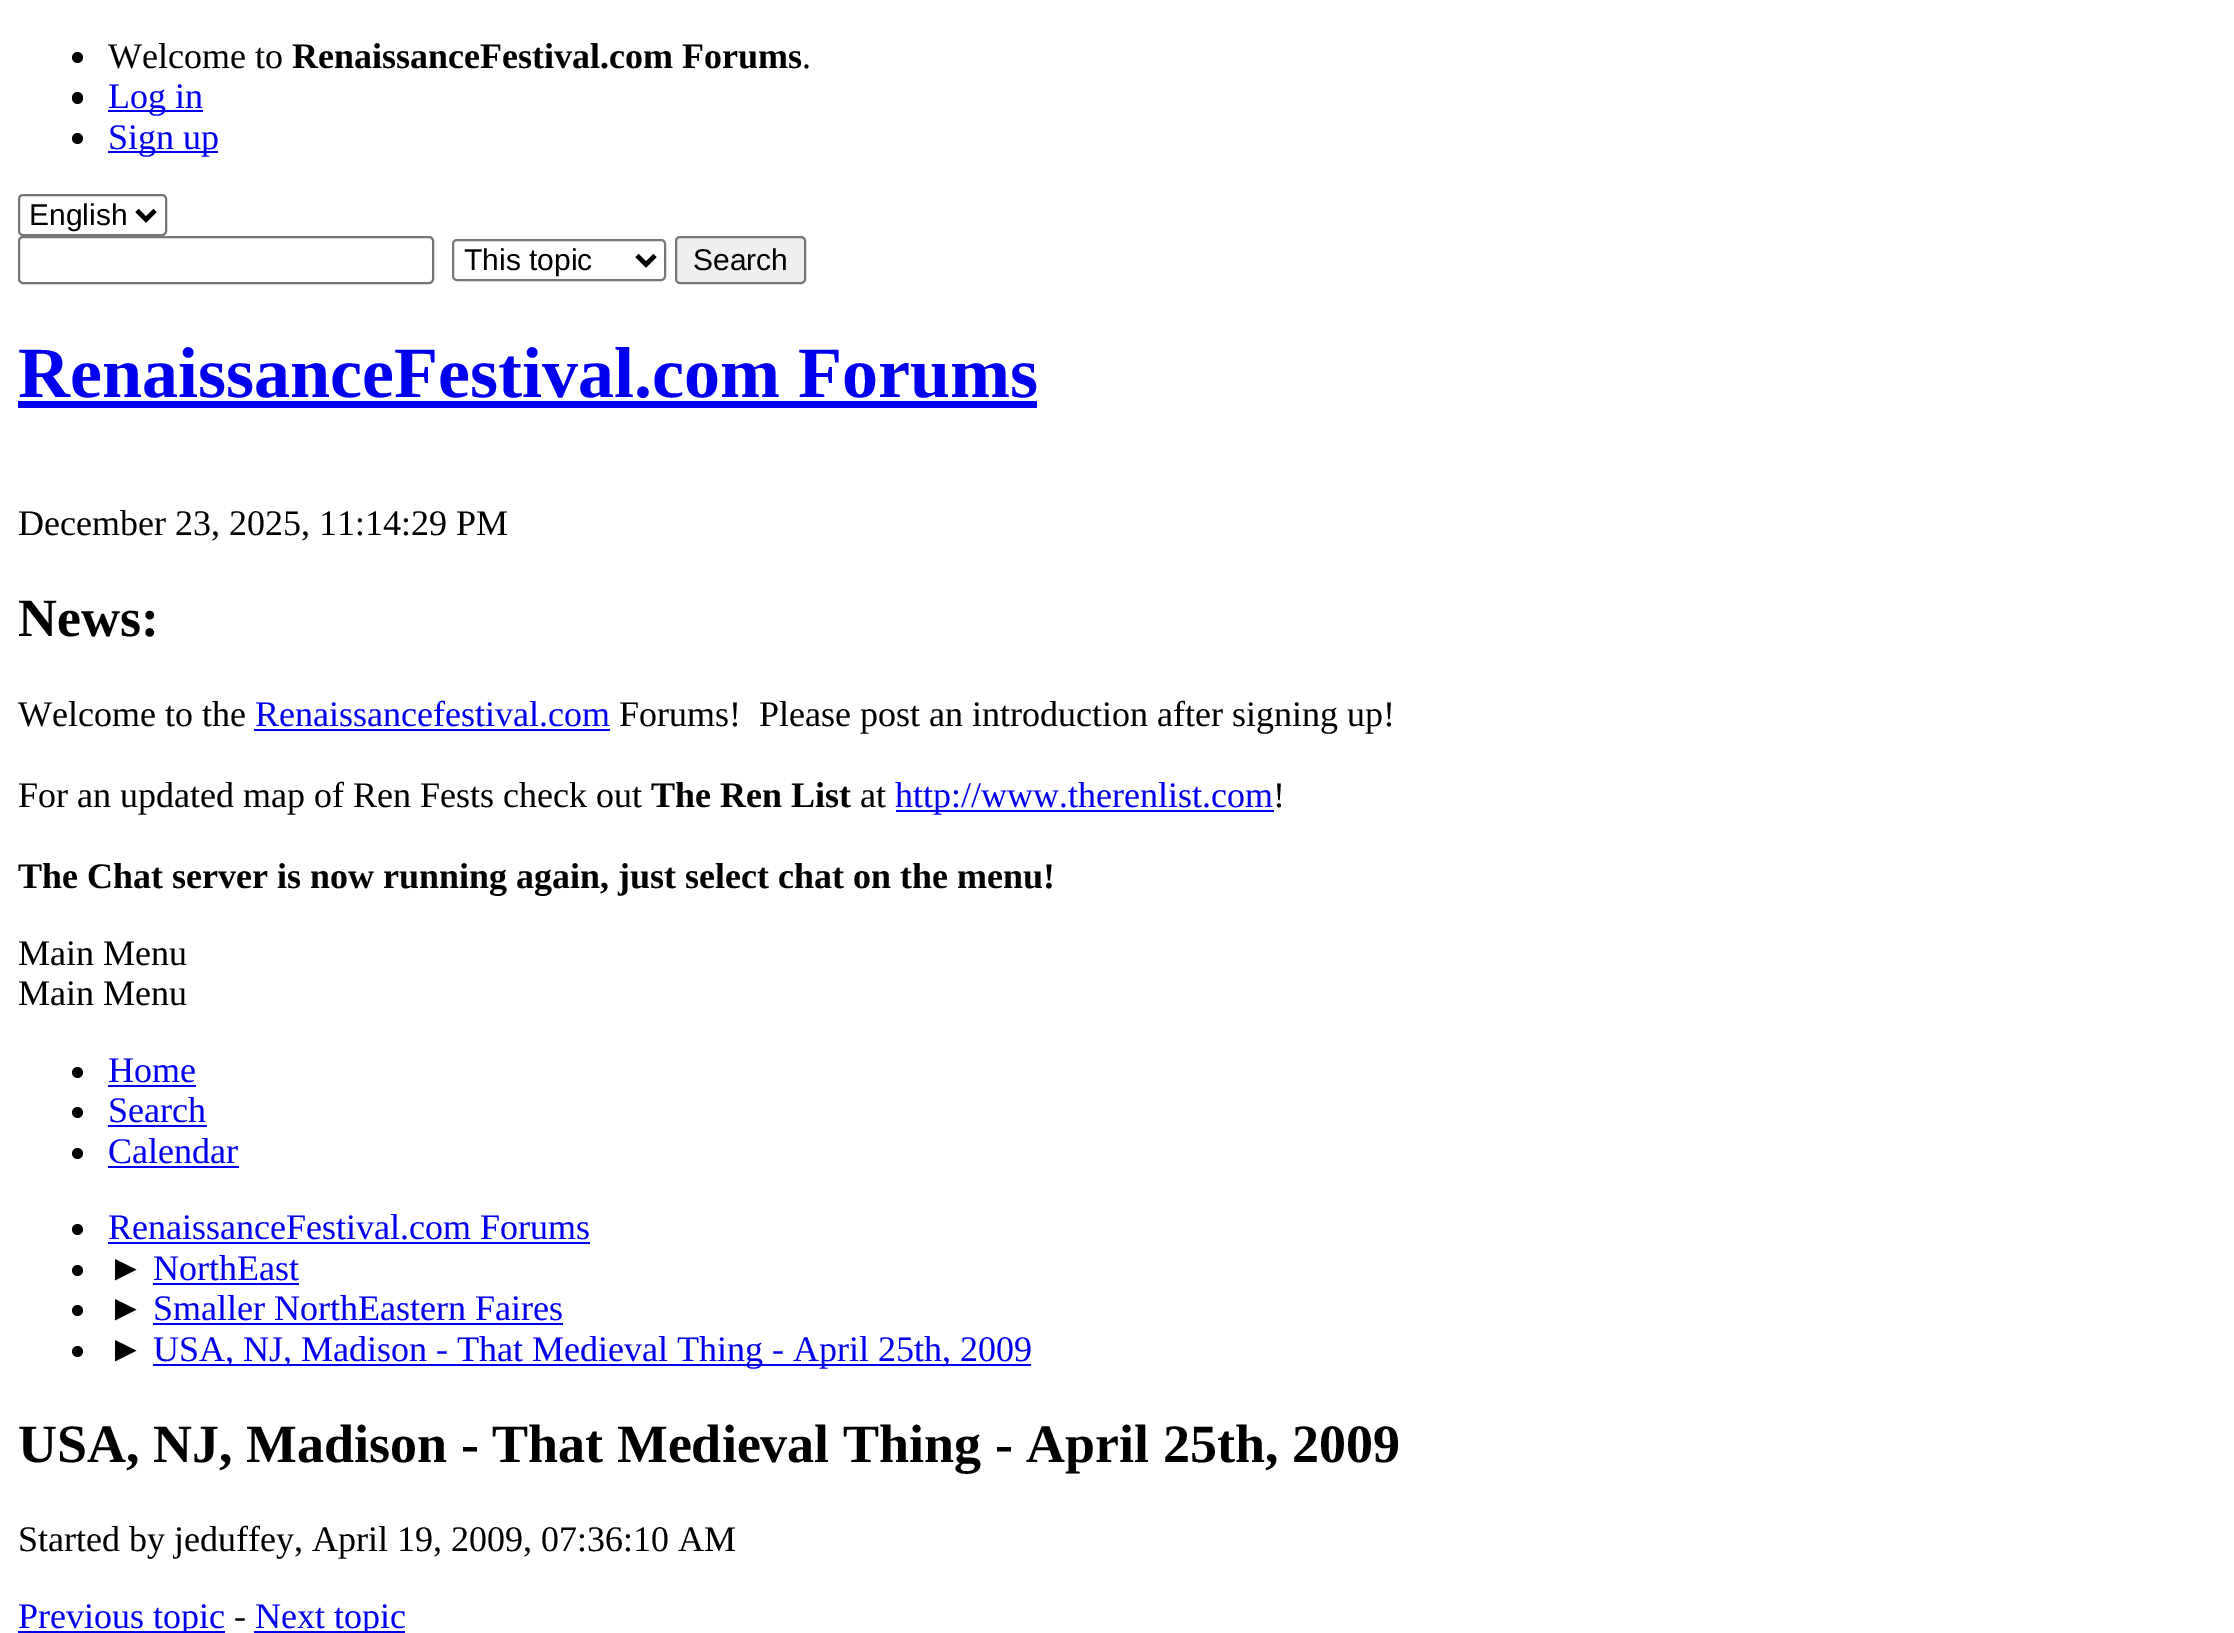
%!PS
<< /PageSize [2234 1633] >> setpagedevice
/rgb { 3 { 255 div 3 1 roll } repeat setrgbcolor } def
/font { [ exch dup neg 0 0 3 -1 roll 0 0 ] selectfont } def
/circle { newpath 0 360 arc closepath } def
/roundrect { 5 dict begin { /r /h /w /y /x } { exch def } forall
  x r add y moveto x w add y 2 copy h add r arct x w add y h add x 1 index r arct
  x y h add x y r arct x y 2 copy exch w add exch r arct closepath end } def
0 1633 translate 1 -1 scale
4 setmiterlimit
255 255 255 rgb
0 0 2234 1633 rectfill
0 0 0 rgb
77.5 57.5 5.5 circle fill
72 92 11 12 5.5 roundrect fill
0 0 238 rgb
108 110 95 2 rectfill
0 0 0 rgb
77.5 138.5 5.5 circle fill
0 0 238 rgb
108 151 110 2 rectfill
118 118 118 rgb
2 setlinewidth
19 195 147 40 4 roundrect stroke
0 0 0 rgb
4.5 setlinewidth
137 210.5 moveto 146 219.5 lineto 155 210.5 lineto stroke
118 118 118 rgb
2 setlinewidth
19 237 414 46 4 roundrect stroke
453 240 212 40 4 roundrect stroke
0 0 0 rgb
4.5 setlinewidth
637 255.5 moveto 646 264.5 lineto 655 255.5 lineto stroke
239 239 239 rgb
676 237 129 46 4 roundrect gsave fill grestore
118 118 118 rgb
2 setlinewidth
stroke
[
  [18 401 1019 7 0 0 238]
  [254 729 356 2 0 0 238]
  [896 810 378 2 0 0 238]
] { aload pop rgb rectfill } forall
0 0 0 rgb
77.5 1072.5 5.5 circle fill
0 0 238 rgb
108 1085 88 2 rectfill
0 0 0 rgb
77.5 1112.5 5.5 circle fill
0 0 238 rgb
108 1125 99 2 rectfill
0 0 0 rgb
77.5 1153.5 5.5 circle fill
0 0 238 rgb
108 1166 131 2 rectfill
0 0 0 rgb
77.5 1229.5 5.5 circle fill
0 0 238 rgb
108 1242 482 2 rectfill
0 0 0 rgb
77.5 1270.5 5.5 circle fill
0 0 238 rgb
153 1283 146 2 rectfill
0 0 0 rgb
77.5 1310.5 5.5 circle fill
0 0 238 rgb
153 1323 410 2 rectfill
0 0 0 rgb
77.5 1351.5 5.5 circle fill
[
  [153 1364 878 2 0 0 238]
  [18 1631 207 2 0 0 238]
  [254 1631 151 2 0 0 238]
] { aload pop rgb rectfill } forall
/LiberationSerif-Regular 36 font
0 0 0 rgb
108 68 moveto (Welcome to) show
/LiberationSerif-Bold 36 font
292 68 moveto (RenaissanceFestival.com Forums) show
/LiberationSerif-Regular 36 font
802 68 moveto (.) show
0 0 238 rgb
108 108 moveto (Log in) show
108 149 moveto (Sign up) show
/LiberationSans-Regular 30 font
0 0 0 rgb
[
  [(English) 29 225]
  [(This topic) 464 270]
  [(Search) 693 270]
] { aload pop moveto show } forall
/LiberationSerif-Bold 72 font
0 0 238 rgb
18 397 moveto (RenaissanceFestival.com Forums) show
/LiberationSerif-Regular 36 font
0 0 0 rgb
18 535 moveto (December 23, 2025, 11:14:29 PM) show
/LiberationSerif-Bold 54 font
18 636 moveto (News:) show
/LiberationSerif-Regular 36 font
18 726 moveto (Welcome to the) show
0 0 238 rgb
255 726 moveto (Renaissancefestival.com) show
0 0 0 rgb
619 726 moveto (Forums!  Please post an introduction after signing up!) show
18 807 moveto (For an updated map of Ren Fests check out) show
/LiberationSerif-Bold 36 font
651 807 moveto (The Ren List) show
/LiberationSerif-Regular 36 font
860 807 moveto (at) show
0 0 238 rgb
895 807 moveto (http://www.therenlist.com) show
0 0 0 rgb
1273 807 moveto (!) show
/LiberationSerif-Bold 36 font
18 888 moveto (The Chat server is now running again, just select chat on the menu!) show
/LiberationSerif-Regular 36 font
18 965 moveto (Main Menu) show
18 1005 moveto (Main Menu) show
0 0 238 rgb
[
  [(Home) 108 1082]
  [(Search) 108 1122]
  [(Calendar) 108 1163]
  [(RenaissanceFestival.com Forums) 108 1239]
] { aload pop moveto show } forall
0 0 0 rgb
108 1280 moveto (►) show
0 0 238 rgb
153 1280 moveto (NorthEast) show
0 0 0 rgb
108 1320 moveto (►) show
0 0 238 rgb
153 1320 moveto (Smaller NorthEastern Faires) show
0 0 0 rgb
108 1361 moveto (►) show
0 0 238 rgb
153 1361 moveto (USA, NJ, Madison - That Medieval Thing - April 25th, 2009) show
/LiberationSerif-Bold 54 font
0 0 0 rgb
18 1462 moveto (USA, NJ, Madison - That Medieval Thing - April 25th, 2009) show
/LiberationSerif-Regular 36 font
18 1551 moveto (Started by jeduffey, April 19, 2009, 07:36:10 AM) show
0 0 238 rgb
18 1628 moveto (Previous topic) show
0 0 0 rgb
234 1628 moveto (-) show
0 0 238 rgb
255 1628 moveto (Next topic) show
showpage
